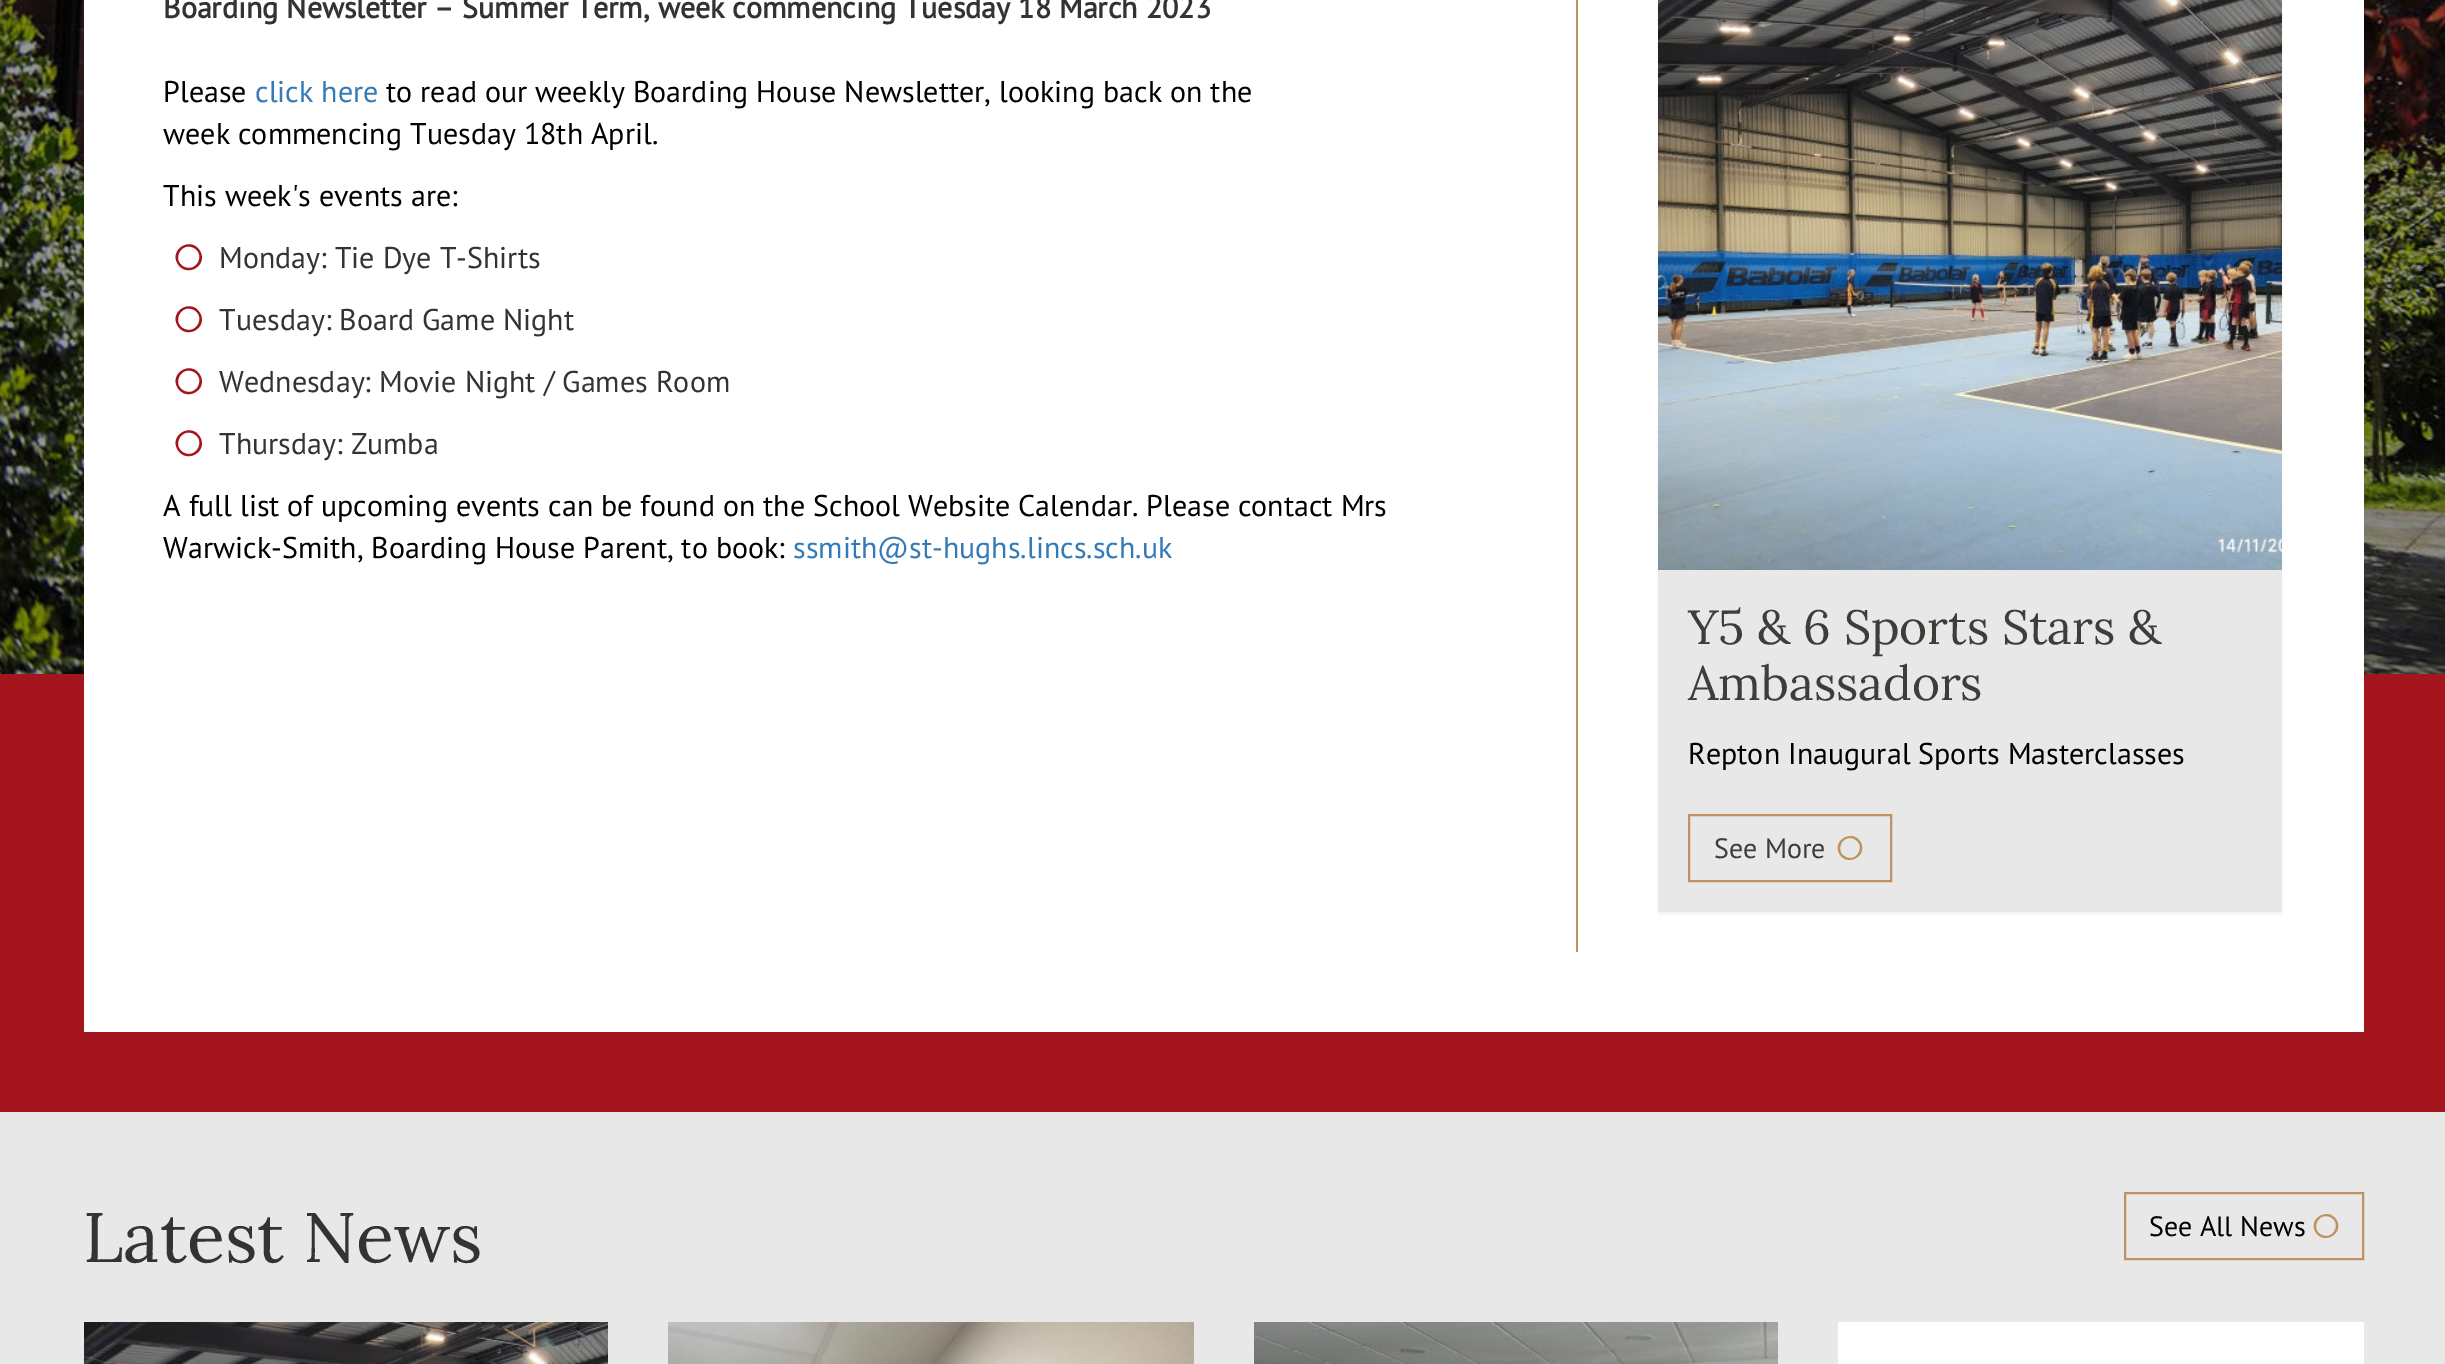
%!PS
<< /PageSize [2445 1364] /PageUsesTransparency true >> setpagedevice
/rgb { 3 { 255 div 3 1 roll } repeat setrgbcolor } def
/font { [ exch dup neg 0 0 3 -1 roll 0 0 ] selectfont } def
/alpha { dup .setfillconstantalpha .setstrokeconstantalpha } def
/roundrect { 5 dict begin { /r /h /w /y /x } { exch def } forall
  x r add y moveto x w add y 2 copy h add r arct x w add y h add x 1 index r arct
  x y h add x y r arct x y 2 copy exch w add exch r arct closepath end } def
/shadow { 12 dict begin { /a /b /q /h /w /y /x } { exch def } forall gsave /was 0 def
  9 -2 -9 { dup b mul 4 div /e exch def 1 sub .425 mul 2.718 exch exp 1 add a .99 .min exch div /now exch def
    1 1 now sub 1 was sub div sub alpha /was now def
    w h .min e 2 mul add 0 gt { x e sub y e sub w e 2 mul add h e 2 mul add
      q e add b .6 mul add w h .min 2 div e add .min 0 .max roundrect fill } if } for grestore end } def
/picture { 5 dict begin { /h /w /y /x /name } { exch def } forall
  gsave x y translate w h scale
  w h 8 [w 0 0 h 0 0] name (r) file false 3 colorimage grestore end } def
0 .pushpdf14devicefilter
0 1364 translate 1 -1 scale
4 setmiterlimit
165 21 30 rgb
0 0 2445 1364 rectfill
(img/1.rgb) 0 0 2445 674 picture
255 255 255 rgb
84 0 2280 1032 rectfill
165 21 30 rgb
193 247.5 moveto 180 242 171.5 261.5 184.5 267 curveto 197.5 272.5 206 253 193 247.5 curveto closepath 200 251 moveto 208.5 265.5 186.5 278.5 177.5 263.5 curveto 169 249 191.5 236 200 251 curveto closepath fill
193 309.5 moveto 180 304 171.5 323.5 184.5 329 curveto 197.5 334.5 206 315 193 309.5 curveto closepath 200 313 moveto 208.5 327.5 186.5 340.5 177.5 325.5 curveto 169 311 191.5 298 200 313 curveto closepath fill
193 371.5 moveto 180 366 171.5 385.5 184.5 391 curveto 197.5 396.5 206 377 193 371.5 curveto closepath 200 375 moveto 208.5 389.5 186.5 402.5 177.5 387.5 curveto 169 373 191.5 360 200 375 curveto closepath fill
193 433.5 moveto 180 428 171.5 447.5 184.5 453 curveto 197.5 458.5 206 439 193 433.5 curveto closepath 200 437 moveto 208.5 451.5 186.5 464.5 177.5 449.5 curveto 169 435 191.5 422 200 437 curveto closepath fill
191 145 96 rgb
1576 0 2 952 rectfill
0 0 0 rgb
1658 -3 624 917 0 1 0.05 shadow
232 232 232 rgb
1658 570 624 342 rectfill
(img/2.rgb) 1658 0 624 570 picture
191 145 96 rgb
2 setlinewidth
1689 815 202 66 rectstroke
1854 839 moveto 1842 833.5 1834 852 1846 857 curveto 1858 862.5 1866 844 1854 839 curveto closepath 1860.5 842 moveto 1868.5 855.5 1847.5 867.5 1839.5 854 curveto 1831.5 840.5 1852.5 828.5 1860.5 842 curveto closepath fill
232 232 232 rgb
0 1112 2445 252 rectfill
191 145 96 rgb
2125 1193 238 66 rectstroke
2330 1217 moveto 2318 1211.5 2310 1230 2322 1235 curveto 2334 1240.5 2342 1222 2330 1217 curveto closepath 2336.5 1220 moveto 2344.5 1233.5 2323.5 1245.5 2315.5 1232 curveto 2307.5 1218.5 2328.5 1206.5 2336.5 1220 curveto closepath fill
(img/3.rgb) 84 1322 524 42 picture
(img/4.rgb) 668 1322 526 42 picture
(img/5.rgb) 1254 1322 524 42 picture
255 255 255 rgb
1838 1322 526 42 rectfill
/PTSans-Bold 30 font
51 51 51 rgb
163 18 moveto (Boarding Newsletter – Summer Term, week commencing Tuesday 18 March 2023) show
/PTSans-Regular 30 font
0 0 0 rgb
163 102 moveto (Please) show
51 122 183 rgb
255 102 moveto (click here) show
0 0 0 rgb
[
  [(to read our weekly Boarding House Newsletter, looking back on the) 386 102]
  [(week commencing Tuesday 18th April.) 163 144]
  [(This week's events are:) 163 206]
] { aload pop moveto show } forall
51 51 51 rgb
[
  [(Monday: Tie Dye T-Shirts) 219 268]
  [(Tuesday: Board Game Night) 219 330]
  [(Wednesday: Movie Night / Games Room) 219 392]
  [(Thursday: Zumba) 219 454]
] { aload pop moveto show } forall
0 0 0 rgb
163 516 moveto (A full list of upcoming events can be found on the School Website Calendar. Please contact Mrs) show
163 558 moveto (Warwick-Smith, Boarding House Parent, to book:) show
51 122 183 rgb
793 558 moveto (ssmith@st-hughs.lincs.sch.uk) show
/Lora-Regular 48 font
61 61 58 rgb
1688 644 moveto (Y5 & 6 Sports Stars &) show
1688 700 moveto (Ambassadors) show
/PTSans-Regular 30 font
0 0 0 rgb
1688 764 moveto (Repton Inaugural Sports Masterclasses) show
/PTSans-Regular 28 font
61 61 58 rgb
1714 858 moveto (See More) show
/Lora-Regular 70 font
51 51 51 rgb
83 1262 moveto (Latest News) show
/PTSans-Regular 28 font
0 0 0 rgb
2149 1236 moveto (See All News) show
.poppdf14devicefilter showpage
